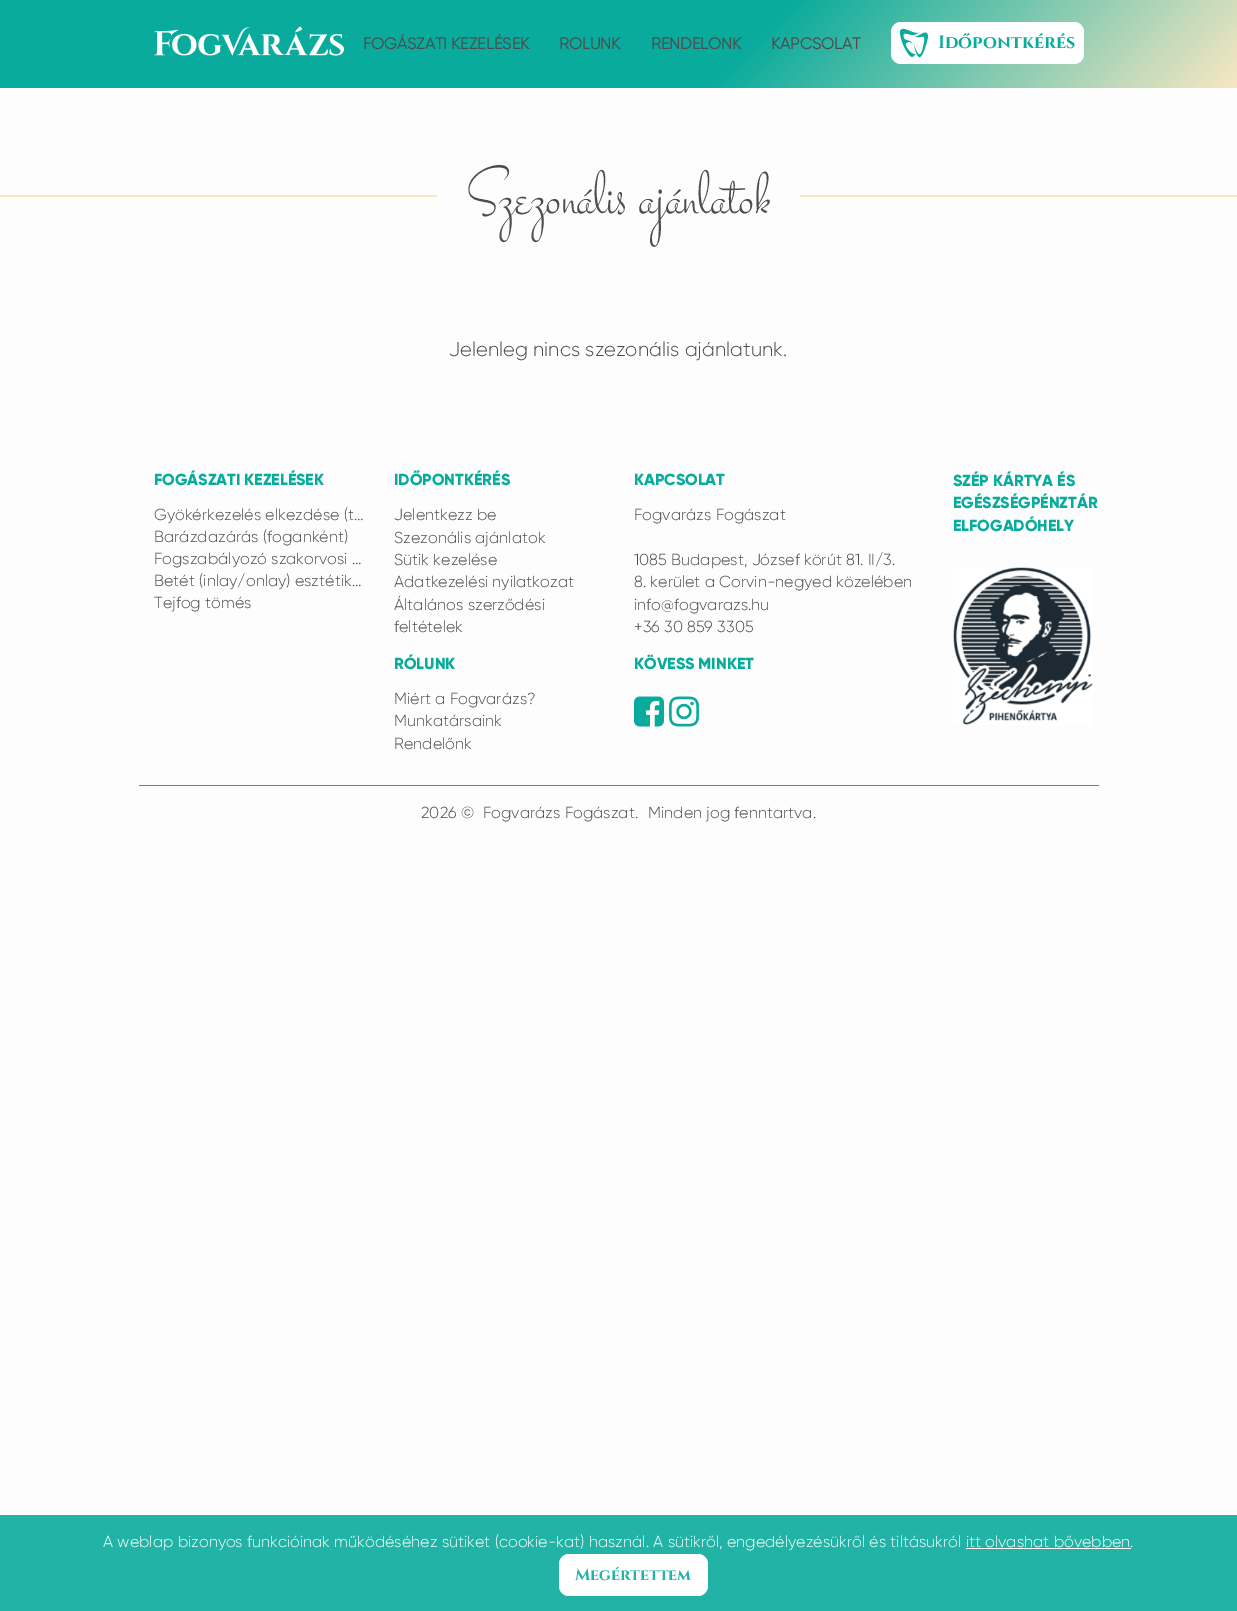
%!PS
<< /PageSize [1237 1611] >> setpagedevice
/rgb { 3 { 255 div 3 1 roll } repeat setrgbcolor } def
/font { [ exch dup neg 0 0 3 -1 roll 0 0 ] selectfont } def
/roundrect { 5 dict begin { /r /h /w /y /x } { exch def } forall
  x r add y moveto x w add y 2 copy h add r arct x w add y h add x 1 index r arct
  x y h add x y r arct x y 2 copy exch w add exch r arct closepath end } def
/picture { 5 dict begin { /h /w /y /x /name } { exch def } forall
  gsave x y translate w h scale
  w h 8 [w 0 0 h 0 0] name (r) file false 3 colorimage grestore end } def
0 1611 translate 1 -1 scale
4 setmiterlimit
253 253 253 rgb
0 0 1237 1611 rectfill
gsave 0 0 moveto 1237 0 lineto 1237 88 lineto 0 88 lineto closepath clip newpath
<< /ShadingType 2 /ColorSpace /DeviceRGB /Coords [287 -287 950 375] /Extend [true true] /Function << /FunctionType 3 /Domain [0 1] /Functions [<< /FunctionType 2 /Domain [0 1] /C0 [0.035 0.671 0.612] /C1 [0.035 0.671 0.612] /N 1 >> << /FunctionType 2 /Domain [0 1] /C0 [0.035 0.671 0.612] /C1 [0.976 0.906 0.765] /N 1 >>] /Bounds [0.6] /Encode [0 1 0 1] >> >> shfill grestore
(img/1.rgb) 154 26 190 30 picture
255 255 255 rgb
891 22 193 42 10 roundrect fill
(img/2.rgb) 899 28 29 30 picture
249 231 195 rgb
0 195 1237 2 rectfill
253 253 253 rgb
437 195 363 2 rectfill
(img/3.rgb) 634 696 30 31 picture
(img/4.rgb) 669 696 30 31 picture
(img/5.rgb) 953 567 140 158 picture
[
  [139 785 960 1 9 171 156]
  [0 1515 1237 96 33 179 166]
  [966 1548 165 1 255 255 255]
] { aload pop rgb rectfill } forall
559 1554 149 42 10 roundrect fill
/Gilroy-Bold 16 font
77 77 77 rgb
[
  [(FOGÁSZATI KEZELÉSEK) 363 49]
  [(RÓLUNK) 559 49]
  [(RENDELŐNK) 651 49]
  [(KAPCSOLAT) 771 49]
] { aload pop moveto show } forall
/Cinzel-Bold 18 font
9 171 156 rgb
938 48 moveto (Időpontkérés) show
/Stalemate-Regular 70 font
77 77 77 rgb
467 214 moveto (Szezonális ajánlatok) show
/Gilroy-Light 20 font
449 356 moveto (Jelenleg nincs szezonális ajánlatunk.) show
/Gilroy-ExtraBold 16 font
9 171 156 rgb
154 485 moveto (FOGÁSZATI KEZELÉSEK) show
/Gilroy-Light 16 font
77 77 77 rgb
[
  [(Gyökérkezelés elkezdése \(t…) 154 520]
  [(Barázdazárás \(foganként\)) 154 542]
  [(Fogszabályozó szakorvosi …) 154 564]
  [(Betét \(inlay/onlay\) esztétik…) 154 586]
  [(Tejfog tömés) 154 608]
] { aload pop moveto show } forall
/Gilroy-ExtraBold 16 font
9 171 156 rgb
394 485 moveto (IDŐPONTKÉRÉS) show
/Gilroy-Light 16 font
77 77 77 rgb
[
  [(Jelentkezz be) 394 520]
  [(Szezonális ajánlatok) 394 543]
  [(Sütik kezelése) 394 565]
  [(Adatkezelési nyilatkozat) 394 587]
  [(Általános szerződési) 394 610]
  [(feltételek) 394 632]
] { aload pop moveto show } forall
/Gilroy-ExtraBold 16 font
9 171 156 rgb
394 669 moveto (RÓLUNK) show
/Gilroy-Light 16 font
77 77 77 rgb
[
  [(Miért a Fogvarázs?) 394 704]
  [(Munkatársaink) 394 726]
  [(Rendelőnk) 394 749]
] { aload pop moveto show } forall
/Gilroy-ExtraBold 16 font
9 171 156 rgb
634 485 moveto (KAPCSOLAT) show
/Gilroy-Light 16 font
77 77 77 rgb
[
  [(Fogvarázs Fogászat) 634 520]
  [(1085 Budapest, József körút 81. II/3.) 634 565]
  [(8. kerület a Corvin-negyed közelében) 634 587]
  [(info@fogvarazs.hu) 634 610]
  [(+36 30 859 3305) 634 632]
] { aload pop moveto show } forall
/Gilroy-ExtraBold 16 font
9 171 156 rgb
[
  [(KÖVESS MINKET) 634 669]
  [(SZÉP KÁRTYA ÉS) 953 486]
  [(EGÉSZSÉGPÉNZTÁR) 953 508]
  [(ELFOGADÓHELY) 953 531]
] { aload pop moveto show } forall
/Gilroy-Light 16 font
77 77 77 rgb
[
  [(2026 ©) 421 818]
  [(Fogvarázs Fogászat.) 483 818]
  [(Minden jog fenntartva.) 648 818]
] { aload pop moveto show } forall
255 255 255 rgb
103 1547 moveto (A weblap bizonyos funkcióinak működéséhez sütiket \(cookie-kat\) használ. A sütikről, engedélyezésükről és tiltásukról itt olvashat bővebben.) show
/Cinzel-Bold 16 font
33 179 166 rgb
575 1580 moveto (Megértettem) show
showpage
